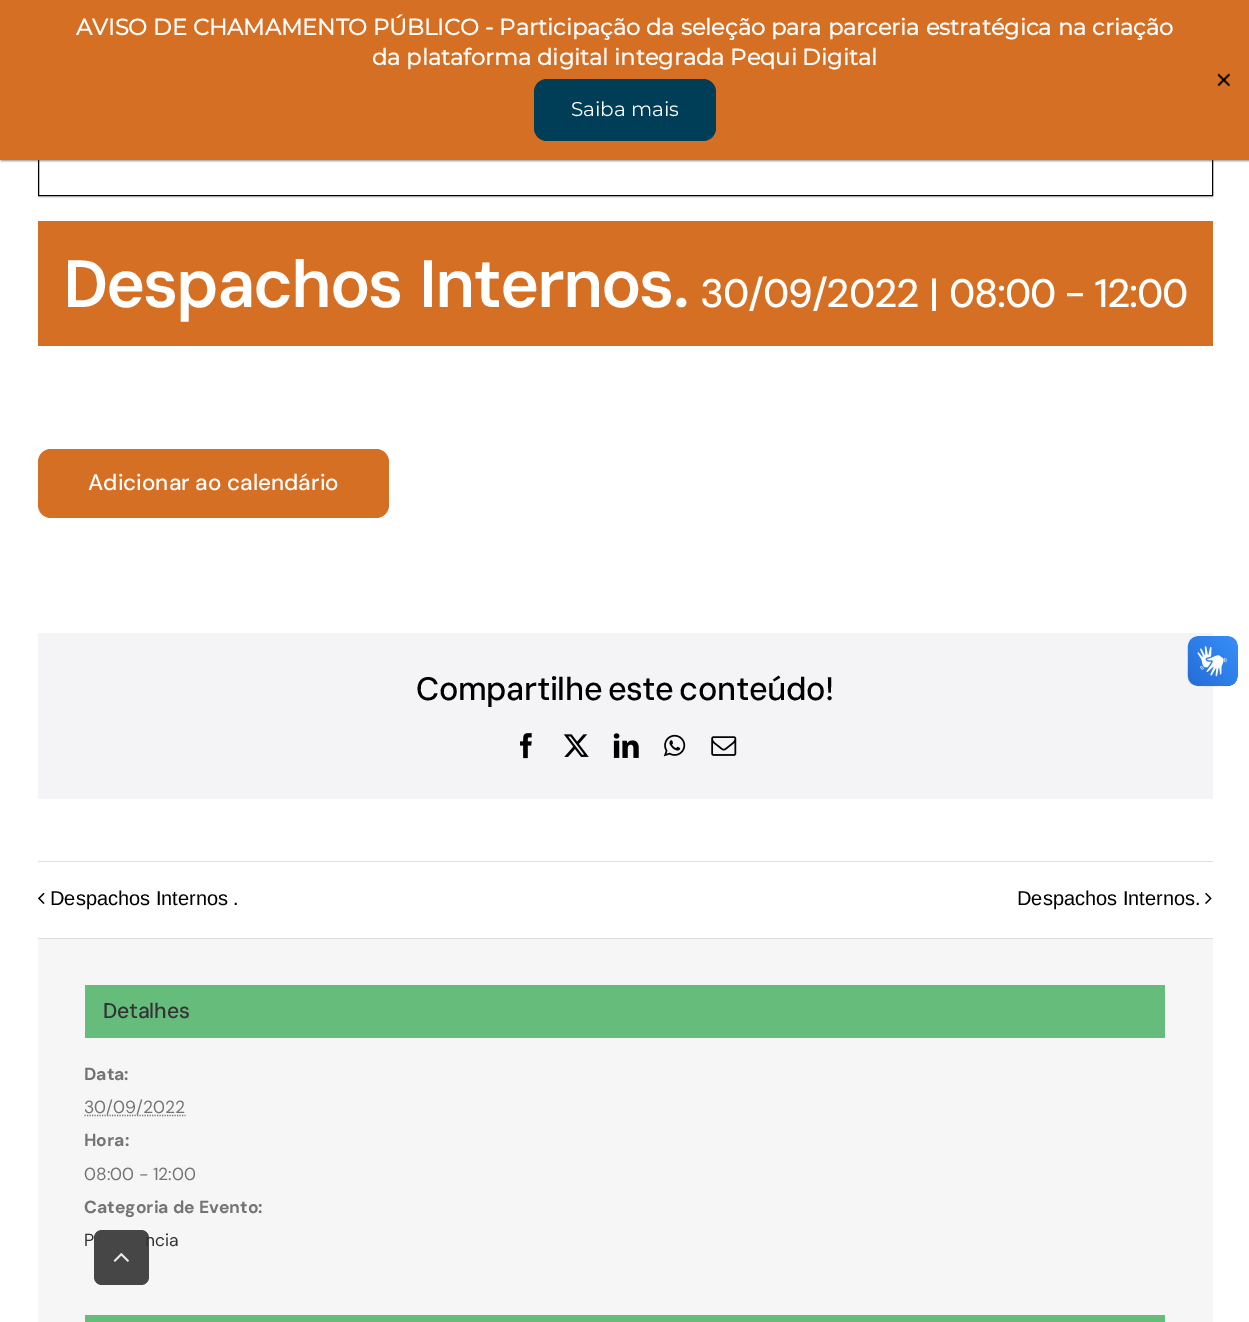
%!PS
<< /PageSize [1249 1322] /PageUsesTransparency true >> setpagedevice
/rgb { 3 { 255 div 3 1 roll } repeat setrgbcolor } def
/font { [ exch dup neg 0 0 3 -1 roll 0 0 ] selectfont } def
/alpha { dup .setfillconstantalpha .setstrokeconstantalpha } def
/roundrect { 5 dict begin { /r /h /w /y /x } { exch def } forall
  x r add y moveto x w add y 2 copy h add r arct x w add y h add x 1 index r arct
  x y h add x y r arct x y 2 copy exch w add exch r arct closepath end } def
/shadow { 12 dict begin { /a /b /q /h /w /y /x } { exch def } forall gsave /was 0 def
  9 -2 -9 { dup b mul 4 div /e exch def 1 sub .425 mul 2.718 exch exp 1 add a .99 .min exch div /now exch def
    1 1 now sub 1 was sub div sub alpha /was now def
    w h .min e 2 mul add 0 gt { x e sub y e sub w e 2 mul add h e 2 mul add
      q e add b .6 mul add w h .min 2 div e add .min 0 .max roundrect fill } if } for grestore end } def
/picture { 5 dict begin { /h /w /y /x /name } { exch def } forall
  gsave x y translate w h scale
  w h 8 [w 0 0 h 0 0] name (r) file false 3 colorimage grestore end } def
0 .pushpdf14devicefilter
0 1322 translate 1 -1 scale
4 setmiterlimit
255 255 255 rgb
0 0 1249 1322 rectfill
0 0 0 rgb
38 93 1175 105 0 0.5 0.1 shadow
255 255 255 rgb
39 160 1173 35 rectfill
0 0 0 rgb
38.5 91.5 1174 104 rectstroke
66 66 66 rgb
1 1 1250 160 0 1 0.6 shadow
213 111 36 rgb
0 0 1249 160 rectfill
0 62 88 rgb
534 79 182 62 13 roundrect fill
(img/1.rgb) 1217 73 13 14 picture
244 244 246 rgb
38 633 1175 166 rectfill
(img/2.rgb) 1187 636 51 51 picture
(img/3.rgb) 1188 636 50 50 picture
213 111 36 rgb
38 221 1175 125 rectfill
38 449 351 69 13 roundrect fill
(img/4.rgb) 520 733 12 26 picture
(img/5.rgb) 563 734 26 23 picture
(img/6.rgb) 613 733 26 25 picture
(img/7.rgb) 663 734 23 23 picture
(img/8.rgb) 711 736 26 20 picture
224 222 222 rgb
38 861 1175 1 rectfill
38 938 1175 1 rectfill
(img/9.rgb) 38 892 7 12 picture
(img/10.rgb) 1205 892 7 12 picture
246 246 246 rgb
38 939 1175 383 rectfill
101 188 123 rgb
85 985 1080 53 rectfill
116 116 116 rgb
1.2 setlinewidth
[1.25 1.25] 0 setdash
84.5 1115.5 moveto 185.5 1115.5 lineto stroke
101 188 123 rgb
85 1315 1080 7 rectfill
/Montserrat-Bold 22.5 font
255 255 255 rgb
76 35 moveto (AVISO DE CHAMAMENTO PÚBLICO - Participação da seleção para parceria estratégica na criação) show
372 65 moveto (da plataforma digital integrada Pequi Digital) show
/Montserrat-Thin 20 font
571 116 moveto (Saiba mais) show
/DMSans-SemiBold 66.75 font
63 307 moveto 4 0 32 -2.4 0 (Despachos Internos.) awidthshow
/DMSans-Medium 39.75 font
700 307 moveto 2 0 32 -1.25 0 (30/09/2022 | 08:00) awidthshow
1064 307 moveto -1.25 0 (- 12:00) ashow
/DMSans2-Medium 22.5 font
88 490 moveto (Adicionar ao calendário) show
/DMSans-Medium 32.4 font
0 0 0 rgb
416 700 moveto -2 0 32 -0.5 0 (Compartilhe este conteúdo!) awidthshow
/LiberationSans-Regular 20 font
50 905 moveto (Despachos Internos .) show
1017 905 moveto (Despachos Internos.) show
/DMSans-Medium 21.25 font
51 51 51 rgb
103 1018 moveto -0.25 0 (Detalhes) ashow
/DMSans-Bold 17.5 font
116 116 116 rgb
84 1080 moveto (Data:) show
/DMSans-Regular 17.5 font
84 1113 moveto (30/09/2022) show
/DMSans-Bold 17.5 font
84 1146 moveto (Hora:) show
/DMSans-Regular 17.5 font
84 1180 moveto (08:00 - 12:00) show
/DMSans-Bold 17.5 font
84 1213 moveto (Categoria de Evento:) show
/DMSans-Regular 17.5 font
51 51 51 rgb
84 1246 moveto (P) show
145 1246 moveto (ncia) show
0.9 alpha
94 1230 55 55 8 roundrect fill
1 alpha
(img/11.rgb) 113 1253 16 9 picture
.poppdf14devicefilter showpage
